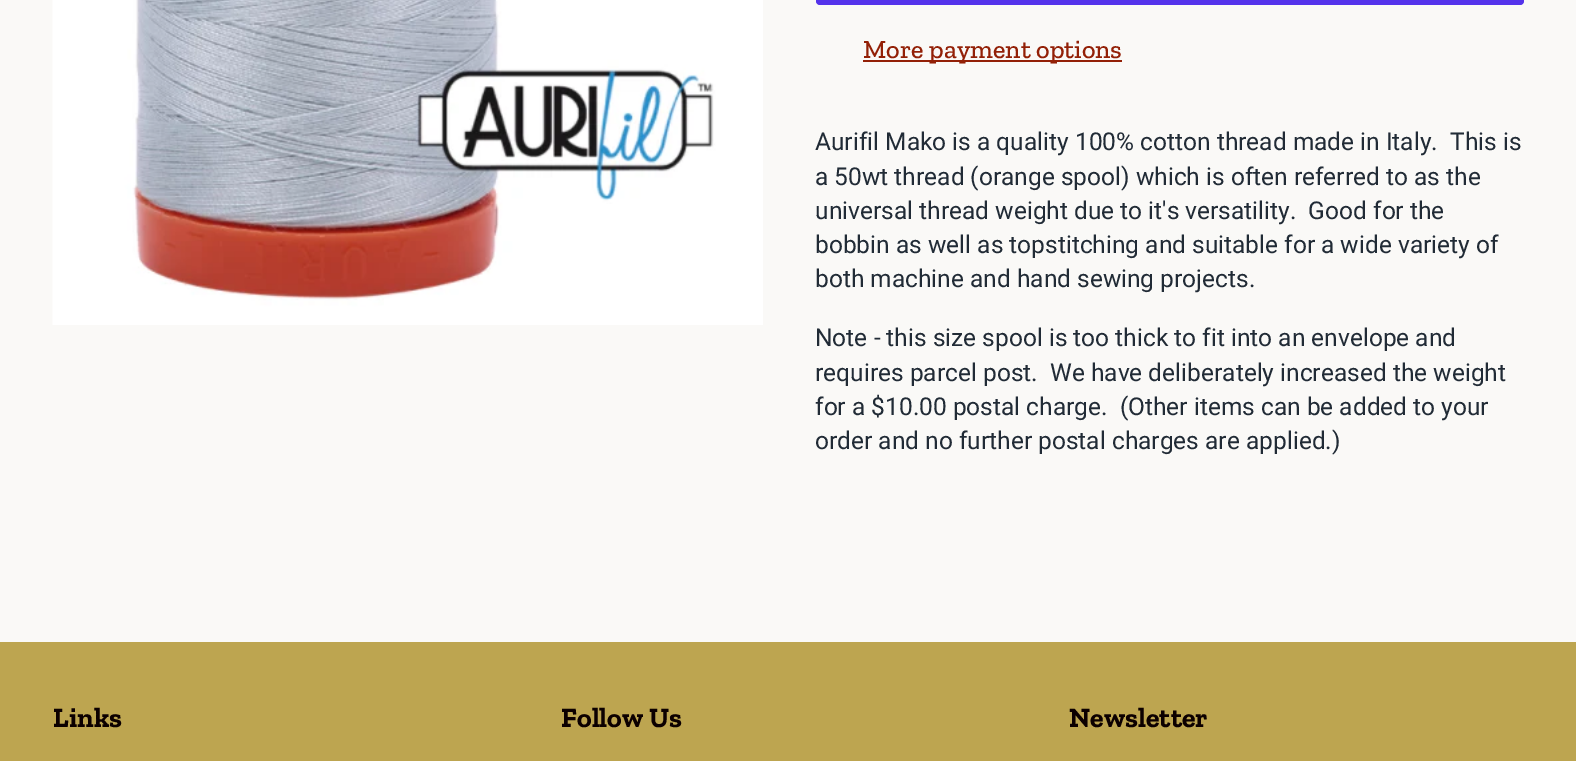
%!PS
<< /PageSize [1576 761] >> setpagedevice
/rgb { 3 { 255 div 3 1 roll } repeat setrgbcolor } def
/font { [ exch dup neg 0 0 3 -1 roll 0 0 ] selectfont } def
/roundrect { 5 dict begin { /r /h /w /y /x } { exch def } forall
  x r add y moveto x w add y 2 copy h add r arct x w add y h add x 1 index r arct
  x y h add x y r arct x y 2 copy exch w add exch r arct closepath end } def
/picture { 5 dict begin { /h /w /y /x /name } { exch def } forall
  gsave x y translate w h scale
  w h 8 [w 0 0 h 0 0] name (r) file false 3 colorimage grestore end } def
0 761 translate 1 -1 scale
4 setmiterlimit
250 249 247 rgb
0 0 1576 761 rectfill
(img/1.rgb) 52 0 711 325 picture
84 51 235 rgb
816 -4 708 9 4 roundrect fill
147 32 7 rgb
863 60 259 2 rectfill
189 165 80 rgb
0 642 1576 119 rectfill
/ZillaSlab-Medium 26.25 font
147 32 7 rgb
863 58 moveto (More payment options) show
/Roboto-Regular 24.5 font
33 43 54 rgb
[
  [(Aurifil Mako is a quality 100% cotton thread made in Italy.  This is) 815 150]
  [(a 50wt thread \(orange spool\) which is often referred to as the) 815 185]
  [(universal thread weight due to it's versatility.  Good for the) 815 219]
  [(bobbin as well as topstitching and suitable for a wide variety of) 815 253]
  [(both machine and hand sewing projects.) 815 287]
  [(Note - this size spool is too thick to fit into an envelope and) 815 346]
  [(requires parcel post.  We have deliberately increased the weight) 815 381]
  [(for a $10.00 postal charge.  \(Other items can be added to your) 815 415]
  [(order and no further postal charges are applied.\)) 815 449]
] { aload pop moveto show } forall
/ZillaSlab-Bold 28 font
12 0 0 rgb
[
  [(Links) 53 727]
  [(Follow Us) 561 727]
  [(Newsletter) 1069 727]
] { aload pop moveto show } forall
showpage
